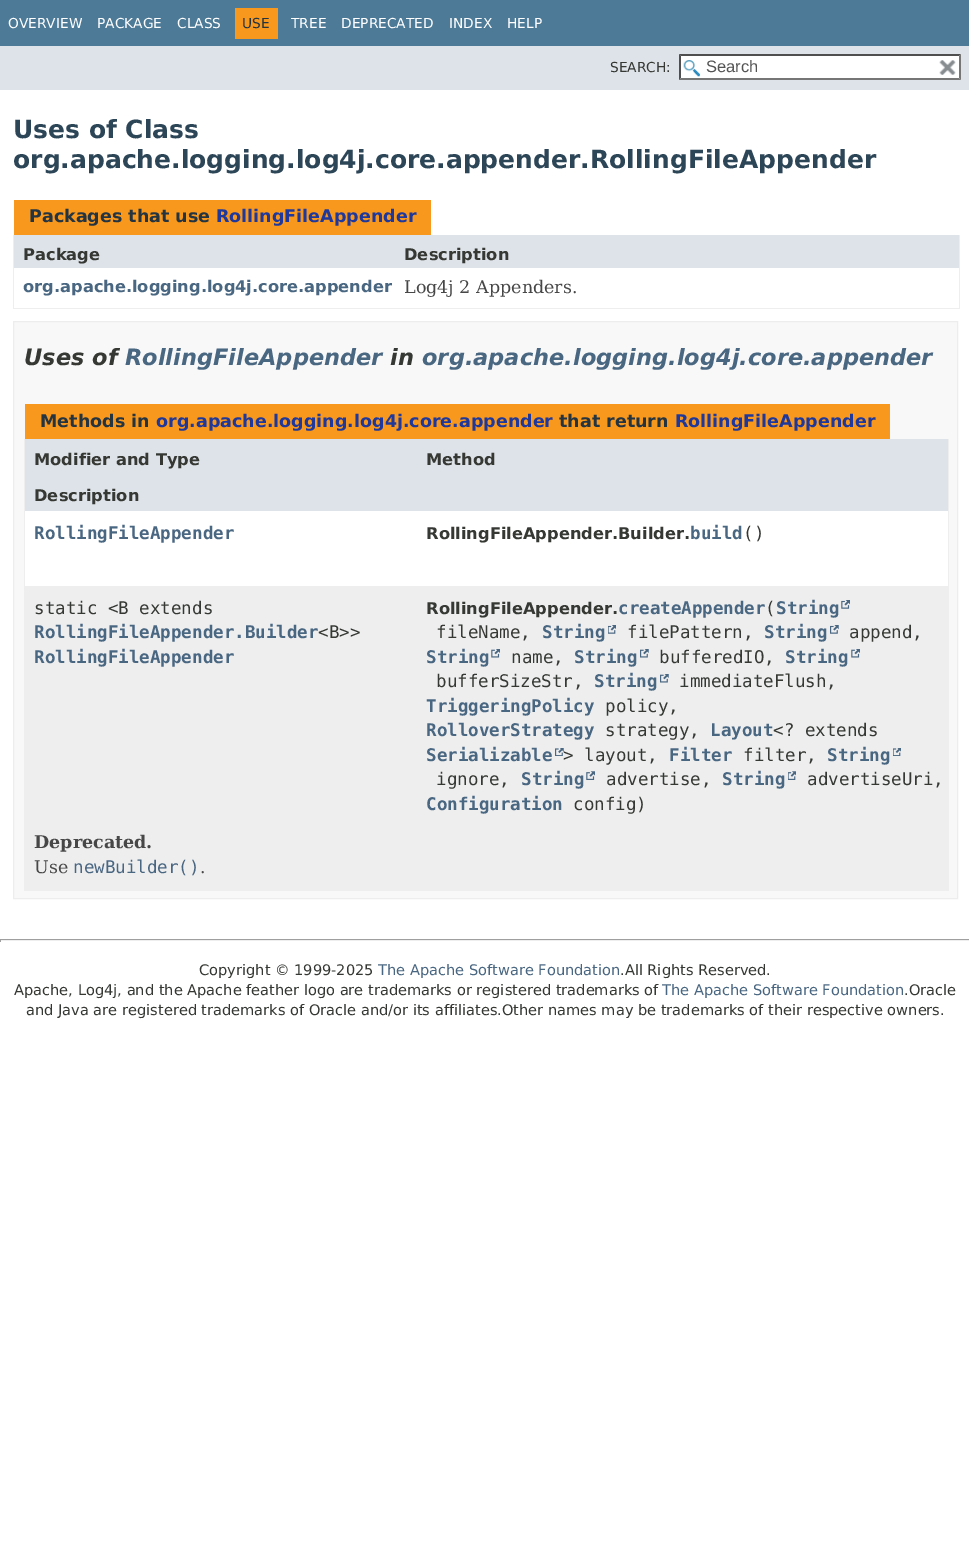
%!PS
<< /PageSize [969 1553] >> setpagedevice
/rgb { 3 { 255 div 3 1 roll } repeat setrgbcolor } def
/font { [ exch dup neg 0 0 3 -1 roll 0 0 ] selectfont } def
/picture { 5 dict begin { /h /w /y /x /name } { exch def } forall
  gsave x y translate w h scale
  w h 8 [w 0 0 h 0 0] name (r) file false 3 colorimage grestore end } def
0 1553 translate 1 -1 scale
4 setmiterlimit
255 255 255 rgb
0 0 969 1553 rectfill
[
  [0 0 969 46 77 122 151]
  [235 8 43 31 248 152 29]
  [0 46 969 44 222 227 233]
  [679 54 282 26 255 255 255]
] { aload pop rgb rectfill } forall
(img/1.rgb) 683 60 17 17 picture
79 79 79 rgb
679 54 moveto 961 54 lineto 959 56 lineto 681 56 lineto closepath fill
118 118 118 rgb
961 54 moveto 961 80 lineto 959 77.5 lineto 959 56 lineto closepath fill
961 80 moveto 679 80 lineto 681 78 lineto 959 78 lineto closepath fill
79 79 79 rgb
679 80 moveto 679 54 lineto 681 56 lineto 681 77.5 lineto closepath fill
(img/2.rgb) 939 60 17 15 picture
[
  [14 200 417 35 248 152 29]
  [959 235 1 74 238 238 238]
  [13 308 947 1 238 238 238]
  [13 235 1 74 238 238 238]
  [14 235 945 33 222 227 233]
] { aload pop rgb rectfill } forall
248 248 248 rgb
13.5 321.5 moveto 957.5 321.5 lineto 957.5 898.5 lineto 13.5 898.5 lineto closepath gsave fill grestore
237 237 237 rgb
stroke
[
  [25 404 865 35 248 152 29]
  [948 439 1 452 238 238 238]
  [24 890 925 1 238 238 238]
  [24 439 1 452 238 238 238]
  [25 439 923 36 222 227 233]
  [25 475 923 36 222 227 233]
  [25 511 923 39 255 255 255]
  [25 550 923 36 255 255 255]
  [25 586 923 234 238 238 239]
] { aload pop rgb rectfill } forall
(img/3.rgb) 841 600 9 9 picture
(img/4.rgb) 608 625 8 9 picture
(img/5.rgb) 830 625 9 9 picture
(img/6.rgb) 491 649 9 9 picture
(img/7.rgb) 640 649 9 9 picture
(img/6.rgb) 851 649 9 9 picture
(img/7.rgb) 660 674 9 9 picture
(img/8.rgb) 555 748 9 8 picture
(img/9.rgb) 893 748 8 8 picture
(img/10.rgb) 586 771 9 9 picture
(img/11.rgb) 788 771 8 9 picture
[
  [25 820 923 70 238 238 239]
  [0 939 969 1 159 159 159]
  [0 940 969 1 238 238 238]
  [0 939 1 3 159 159 159]
] { aload pop rgb rectfill } forall
/DejaVuSans-Regular 13.75 font
255 255 255 rgb
[
  [(OVERVIEW) 8 28]
  [(PACKAGE) 97 28]
  [(CLASS) 177 28]
] { aload pop moveto show } forall
37 52 65 rgb
242 28 moveto (USE) show
255 255 255 rgb
[
  [(TREE) 291 28]
  [(DEPRECATED) 341 28]
  [(INDEX) 449 28]
  [(HELP) 507 28]
] { aload pop moveto show } forall
53 56 51 rgb
610 72 moveto (SEARCH:) show
/LiberationSans-Regular 16.5 font
84 84 84 rgb
706 72 moveto (Search) show
/DejaVuSans-Bold 25 font
44 69 87 rgb
13 138 moveto (Uses of Class) show
13 168 moveto (org.apache.logging.log4j.core.appender.RollingFileAppender) show
/DejaVuSans-Bold 17.5 font
37 52 65 rgb
29 222 moveto (Packages that use) show
31 56 156 rgb
216 222 moveto (RollingFileAppender) show
/DejaVuSans-Bold 16.25 font
53 56 51 rgb
23 260 moveto (Package) show
404 260 moveto (Description) show
74 103 130 rgb
23 292 moveto (org.apache.logging.log4j.core.appender) show
/DejaVuSerif-Regular 17.5 font
71 71 71 rgb
404 293 moveto (Log4j 2 Appenders.) show
/DejaVuSans-BoldItalic 22.5 font
53 56 51 rgb
24 365 moveto (Uses of) show
74 103 130 rgb
125 365 moveto (RollingFileAppender) show
53 56 51 rgb
390 365 moveto (in) show
74 103 130 rgb
422 365 moveto (org.apache.logging.log4j.core.appender) show
/DejaVuSans-Bold 17.5 font
37 52 65 rgb
40 427 moveto (Methods in) show
31 56 156 rgb
156 427 moveto (org.apache.logging.log4j.core.appender) show
37 52 65 rgb
559 427 moveto (that return) show
31 56 156 rgb
675 427 moveto (RollingFileAppender) show
/DejaVuSans-Bold 16.25 font
53 56 51 rgb
[
  [(Modifier and Type) 34 465]
  [(Method) 426 465]
  [(Description) 34 501]
] { aload pop moveto show } forall
/DejaVuSansMono-Bold 17.5 font
74 103 130 rgb
34 539 moveto (RollingFileAppender) show
/DejaVuSans-Bold 16.25 font
53 56 51 rgb
426 539 moveto (RollingFileAppender.Builder.) show
/DejaVuSansMono-Bold 17.5 font
74 103 130 rgb
690 539 moveto (build) show
/DejaVuSansMono-Regular 17.5 font
53 56 51 rgb
743 539 moveto (\(\)) show
34 614 moveto (static <B extends) show
/DejaVuSansMono-Bold 17.5 font
74 103 130 rgb
34 638 moveto (RollingFileAppender.Builder) show
/DejaVuSansMono-Regular 17.5 font
53 56 51 rgb
318 638 moveto (<B>>) show
/DejaVuSansMono-Bold 17.5 font
74 103 130 rgb
34 663 moveto (RollingFileAppender) show
618 614 moveto (createAppender String) show
/DejaVuSansMono-Regular 17.5 font
53 56 51 rgb
765 614 moveto (\() show
436 638 moveto (fileName,) show
/DejaVuSansMono-Bold 17.5 font
74 103 130 rgb
542 638 moveto (String) show
/DejaVuSansMono-Regular 17.5 font
53 56 51 rgb
627 638 moveto (filePattern,) show
/DejaVuSansMono-Bold 17.5 font
74 103 130 rgb
764 638 moveto (String) show
/DejaVuSansMono-Regular 17.5 font
53 56 51 rgb
849 638 moveto (append,) show
/DejaVuSansMono-Bold 17.5 font
74 103 130 rgb
426 663 moveto (String) show
/DejaVuSansMono-Regular 17.5 font
53 56 51 rgb
511 663 moveto (name,) show
/DejaVuSansMono-Bold 17.5 font
74 103 130 rgb
574 663 moveto (String) show
/DejaVuSansMono-Regular 17.5 font
53 56 51 rgb
659 663 moveto (bufferedIO,) show
/DejaVuSansMono-Bold 17.5 font
74 103 130 rgb
785 663 moveto (String) show
/DejaVuSansMono-Regular 17.5 font
53 56 51 rgb
436 687 moveto (bufferSizeStr,) show
/DejaVuSansMono-Bold 17.5 font
74 103 130 rgb
594 687 moveto (String) show
/DejaVuSansMono-Regular 17.5 font
53 56 51 rgb
679 687 moveto (immediateFlush,) show
/DejaVuSansMono-Bold 17.5 font
74 103 130 rgb
426 712 moveto (TriggeringPolicy) show
/DejaVuSansMono-Regular 17.5 font
53 56 51 rgb
605 712 moveto (policy,) show
/DejaVuSansMono-Bold 17.5 font
74 103 130 rgb
426 736 moveto (RolloverStrategy) show
/DejaVuSansMono-Regular 17.5 font
53 56 51 rgb
605 736 moveto (strategy,) show
/DejaVuSansMono-Bold 17.5 font
74 103 130 rgb
710 736 moveto (Layout) show
/DejaVuSansMono-Regular 17.5 font
53 56 51 rgb
773 736 moveto (<? extends) show
/DejaVuSansMono-Bold 17.5 font
74 103 130 rgb
426 761 moveto (Serializable) show
/DejaVuSansMono-Regular 17.5 font
53 56 51 rgb
563 761 moveto (> layout,) show
/DejaVuSansMono-Bold 17.5 font
74 103 130 rgb
669 761 moveto (Filter) show
/DejaVuSansMono-Regular 17.5 font
53 56 51 rgb
743 761 moveto (filter,) show
/DejaVuSansMono-Bold 17.5 font
74 103 130 rgb
827 761 moveto (String) show
/DejaVuSansMono-Regular 17.5 font
53 56 51 rgb
436 785 moveto (ignore,) show
/DejaVuSansMono-Bold 17.5 font
74 103 130 rgb
521 785 moveto (String) show
/DejaVuSansMono-Regular 17.5 font
53 56 51 rgb
606 785 moveto (advertise,) show
/DejaVuSansMono-Bold 17.5 font
74 103 130 rgb
722 785 moveto (String) show
/DejaVuSansMono-Regular 17.5 font
53 56 51 rgb
807 785 moveto (advertiseUri,) show
/DejaVuSansMono-Bold 17.5 font
74 103 130 rgb
426 810 moveto (Configuration) show
/DejaVuSansMono-Regular 17.5 font
53 56 51 rgb
573 810 moveto (config\)) show
/DejaVuSans-Bold 16.25 font
426 614 moveto (RollingFileAppender.) show
/DejaVuSerif-Bold 17.5 font
71 71 71 rgb
34 848 moveto (Deprecated.) show
/DejaVuSerif-Regular 17.5 font
34 873 moveto (Use) show
/DejaVuSansMono-Regular 17.5 font
74 103 130 rgb
73 873 moveto (newBuilder\(\)) show
/DejaVuSerif-Regular 17.5 font
71 71 71 rgb
200 873 moveto (.) show
/DejaVuSans-Regular 14.58 font
53 56 51 rgb
199 975 moveto (Copyright © 1999-2025) show
74 103 130 rgb
378 975 moveto (The Apache Software Foundation) show
53 56 51 rgb
620 975 moveto (.All Rights Reserved.) show
14 995 moveto (Apache, Log4j, and the Apache feather logo are trademarks or registered trademarks of) show
74 103 130 rgb
662 995 moveto (The Apache Software Foundation) show
53 56 51 rgb
904 995 moveto (.Oracle) show
26 1015 moveto (and Java are registered trademarks of Oracle and/or its affiliates.Other names may be trademarks of their respective owners.) show
showpage
